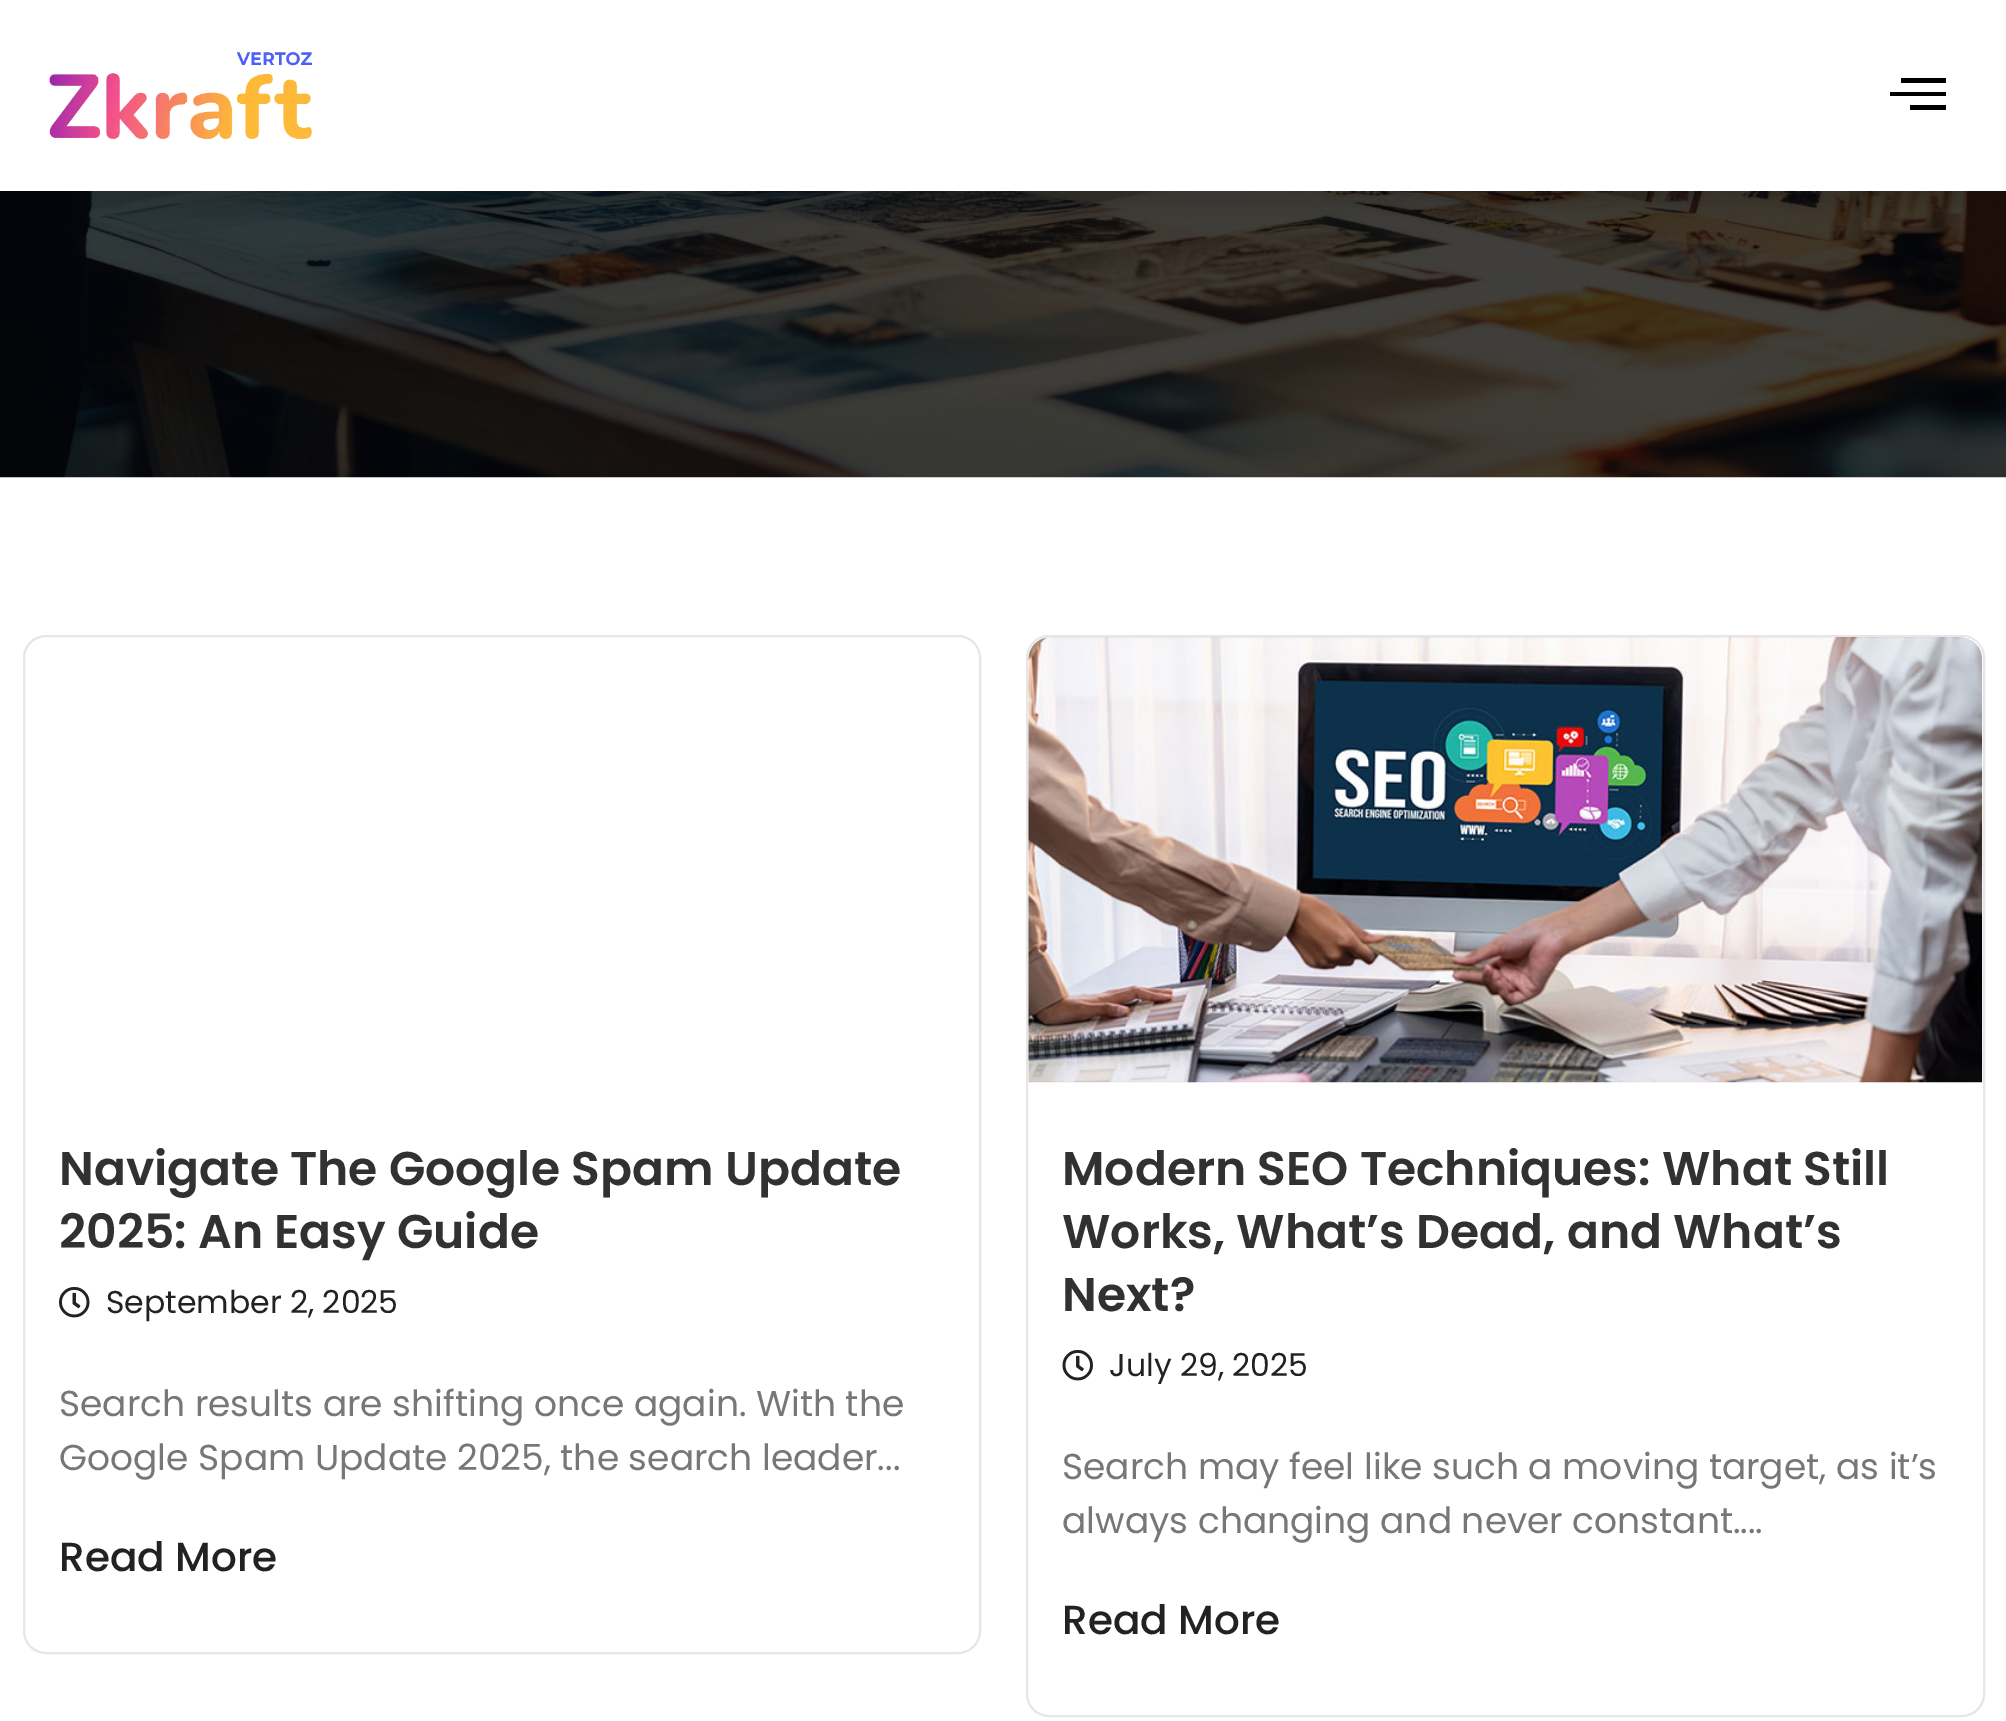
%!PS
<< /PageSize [2006 1721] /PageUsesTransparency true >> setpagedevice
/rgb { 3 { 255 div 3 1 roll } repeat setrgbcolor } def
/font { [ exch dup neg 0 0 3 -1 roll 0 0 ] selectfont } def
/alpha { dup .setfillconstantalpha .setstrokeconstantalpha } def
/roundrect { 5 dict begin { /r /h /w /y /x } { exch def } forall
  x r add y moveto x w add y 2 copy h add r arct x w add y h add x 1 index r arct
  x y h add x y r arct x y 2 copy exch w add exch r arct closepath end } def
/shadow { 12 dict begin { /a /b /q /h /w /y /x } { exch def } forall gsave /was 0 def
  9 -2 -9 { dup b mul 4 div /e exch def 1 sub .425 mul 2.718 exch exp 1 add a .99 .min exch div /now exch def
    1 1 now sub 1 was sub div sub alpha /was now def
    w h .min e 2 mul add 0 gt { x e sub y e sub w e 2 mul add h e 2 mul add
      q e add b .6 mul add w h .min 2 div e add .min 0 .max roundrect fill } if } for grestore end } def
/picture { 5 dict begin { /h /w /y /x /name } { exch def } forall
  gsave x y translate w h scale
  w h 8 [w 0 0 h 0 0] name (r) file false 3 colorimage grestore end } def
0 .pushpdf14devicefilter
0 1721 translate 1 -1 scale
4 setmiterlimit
255 255 255 rgb
0 0 2006 1721 rectfill
(img/2.rgb) 0 191 2006 287 picture
0 0 0 rgb
0 14 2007 191 0 11 0.15 shadow
255 255 255 rgb
0 0 2006 191 rectfill
(img/1.rgb) 49 51 263 89 picture
0 0 0 rgb
1890 96 moveto 1946 96 lineto 1946 92 lineto 1890 92 lineto closepath 1910 110 moveto 1946 110 lineto 1946 105 lineto 1910 105 lineto closepath 1901 78 moveto 1901 83 lineto 1946 83 lineto 1946 78 lineto closepath fill
230 230 230 rgb
2 setlinewidth
24 636 956 1017 22 roundrect stroke
(img/3.rgb) 59 1286 31 32 picture
1027 636 957 1080 22 roundrect stroke
(img/4.rgb) 1028 637 955 446 picture
(img/5.rgb) 1062 1349 31 32 picture
/Poppins-SemiBold 47.25 font
48 49 51 rgb
59 1185 moveto (Navigate The Google Spam Update) show
59 1248 moveto (2025: An Easy Guide) show
/Poppins-Regular 31.5 font
34 34 34 rgb
106 1313 moveto (September 2, 2025) show
/Poppins-Regular 36 font
119 119 119 rgb
59 1416 moveto (Search results are shifting once again. With the) show
59 1470 moveto (Google Spam Update 2025, the search leader...) show
/Poppins-Medium 40.5 font
34 34 34 rgb
59 1571 moveto (Read More) show
/Poppins-SemiBold 47.25 font
48 49 51 rgb
[
  [(Modern SEO Techniques: What Still) 1062 1185]
  [(Works, What’s Dead, and What’s) 1062 1248]
  [(Next?) 1062 1311]
] { aload pop moveto show } forall
/Poppins-Regular 31.5 font
34 34 34 rgb
1109 1376 moveto (July 29, 2025) show
/Poppins-Regular 36 font
119 119 119 rgb
1062 1479 moveto (Search may feel like such a moving target, as it’s) show
1062 1533 moveto (always changing and never constant....) show
/Poppins-Medium 40.5 font
34 34 34 rgb
1062 1634 moveto (Read More) show
.poppdf14devicefilter showpage
